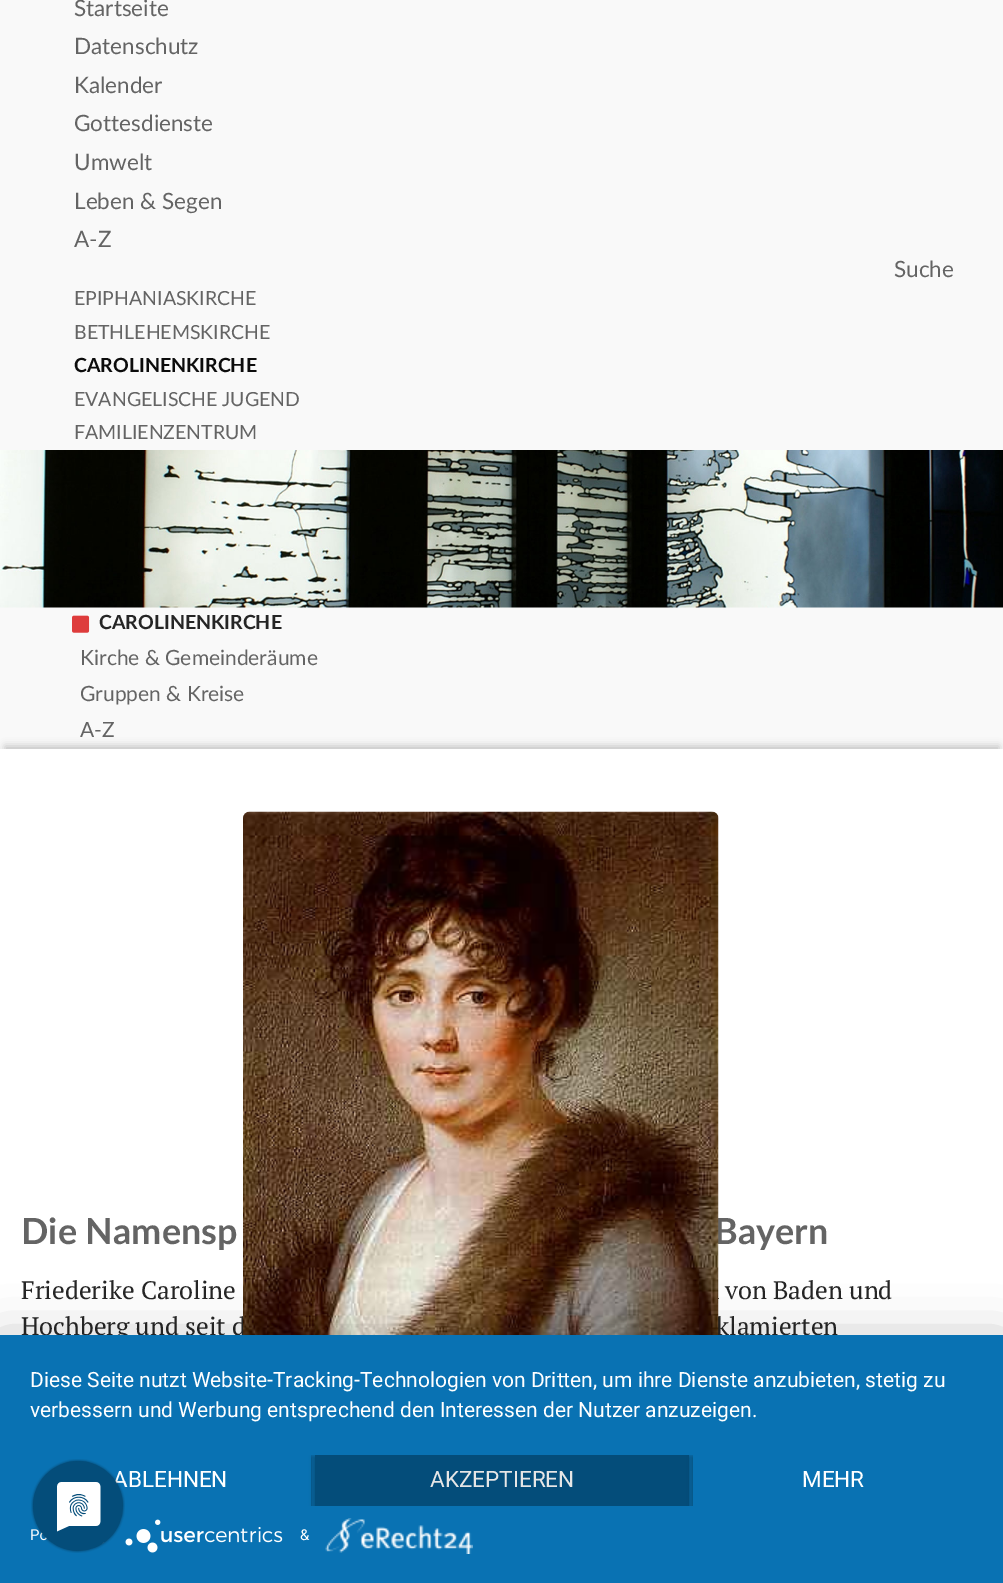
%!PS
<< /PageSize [1003 1583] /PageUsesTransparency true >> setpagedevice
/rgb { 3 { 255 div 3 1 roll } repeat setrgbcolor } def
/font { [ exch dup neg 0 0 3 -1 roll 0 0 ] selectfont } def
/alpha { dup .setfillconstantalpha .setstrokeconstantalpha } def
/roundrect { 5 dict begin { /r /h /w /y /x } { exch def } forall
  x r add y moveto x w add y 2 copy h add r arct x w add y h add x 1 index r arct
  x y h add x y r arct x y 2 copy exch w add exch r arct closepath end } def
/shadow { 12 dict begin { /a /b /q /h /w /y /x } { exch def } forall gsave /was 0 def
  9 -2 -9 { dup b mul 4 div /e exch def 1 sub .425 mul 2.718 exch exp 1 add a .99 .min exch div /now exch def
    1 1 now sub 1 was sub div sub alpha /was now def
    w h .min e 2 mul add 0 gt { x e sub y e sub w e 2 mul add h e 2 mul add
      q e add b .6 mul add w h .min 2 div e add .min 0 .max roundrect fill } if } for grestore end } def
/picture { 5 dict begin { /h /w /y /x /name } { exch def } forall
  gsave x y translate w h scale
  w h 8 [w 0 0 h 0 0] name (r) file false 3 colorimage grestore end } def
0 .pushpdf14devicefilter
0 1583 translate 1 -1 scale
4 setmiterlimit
249 249 249 rgb
0 0 1003 1583 rectfill
(img/1.rgb) 0 450 1003 158 picture
(img/2.rgb) 72 615 18 18 picture
192 192 192 rgb
5 746 994 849 0 4 1 shadow
255 255 255 rgb
0 749 1003 586 rectfill
/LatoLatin-Regular 22.5 font
100 100 100 rgb
[
  [(Startseite) 74 16]
  [(Datenschutz) 74 54]
  [(Kalender) 74 93]
  [(Gottesdienste) 74 131]
  [(Umwelt) 74 170]
  [(Leben & Segen) 74 209]
  [(A-Z) 74 247]
  [(Suche) 894 277]
] { aload pop moveto show } forall
/LatoLatin-Regular 19.5 font
74 305 moveto (EPIPHANIASKIRCHE) show
74 339 moveto (BETHLEHEMSKIRCHE) show
/LatoLatin-Bold 19.5 font
12 12 12 rgb
74 372 moveto (CAROLINENKIRCHE) show
/LatoLatin-Regular 19.5 font
100 100 100 rgb
74 406 moveto (EVANGELISCHE JUGEND) show
74 439 moveto (FAMILIENZENTRUM) show
/LatoLatin-Bold 19.5 font
37 37 37 rgb
99 629 moveto (CAROLINENKIRCHE) show
/LatoLatin-Regular 21 font
100 100 100 rgb
[
  [(Kirche & Gemeinderäume) 80 665]
  [(Gruppen & Kreise) 80 701]
  [(A-Z) 80 737]
] { aload pop moveto show } forall
/LatoLatin-Bold 36 font
21 1244 moveto (Die Namensp) show
714 1244 moveto (Bayern) show
/PTSerif-Regular 25.25 font
37 37 37 rgb
[
  [(Friederike Caroline) 21 1299]
  [(von Baden und) 725 1299]
  [(Hochberg und seit d) 21 1335]
  [(klamierten) 716 1335]
] { aload pop moveto show } forall
(img/3.rgb) 243 811 476 524 picture
0 0 0 rgb
0 1344 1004 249 0 27 0.3 shadow
9 114 179 rgb
0 1335 1003 248 rectfill
/Roboto-Regular 21 font
255 255 255 rgb
30 1387 moveto (Diese Seite nutzt Website-Tracking-Technologien von Dritten, um ihre Dienste anzubieten, stetig zu) show
30 1417 moveto (verbessern und Werbung entsprechend den Interessen der Nutzer anzuzeigen.) show
gsave
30 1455 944 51 rectclip
0 0 0 rgb
30 1457 281 51 0 3 0.4 shadow
grestore
9 114 179 rgb
30 1455 281 51 rectfill
/Roboto-Regular 22.5 font
255 255 255 rgb
113 1487 moveto (ABLEHNEN) show
gsave
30 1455 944 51 rectclip
0 0 0 rgb
315 1457 374 51 0 3 0.4 shadow
grestore
4 77 122 rgb
315 1455 374 51 rectfill
230 230 230 rgb
430 1487 moveto (AKZEPTIEREN) show
gsave
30 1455 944 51 rectclip
0 0 0 rgb
693 1457 281 51 0 3 0.4 shadow
grestore
9 114 179 rgb
693 1455 281 51 rectfill
255 255 255 rgb
802 1487 moveto (MEHR) show
/Roboto-Regular 15 font
30 1540 moveto (Po) show
(img/4.rgb) 125 1519 158 34 picture
300 1540 moveto (&) show
(img/5.rgb) 325 1518 148 36 picture
(img/6.rgb) 31 1459 94 94 picture
.poppdf14devicefilter showpage
